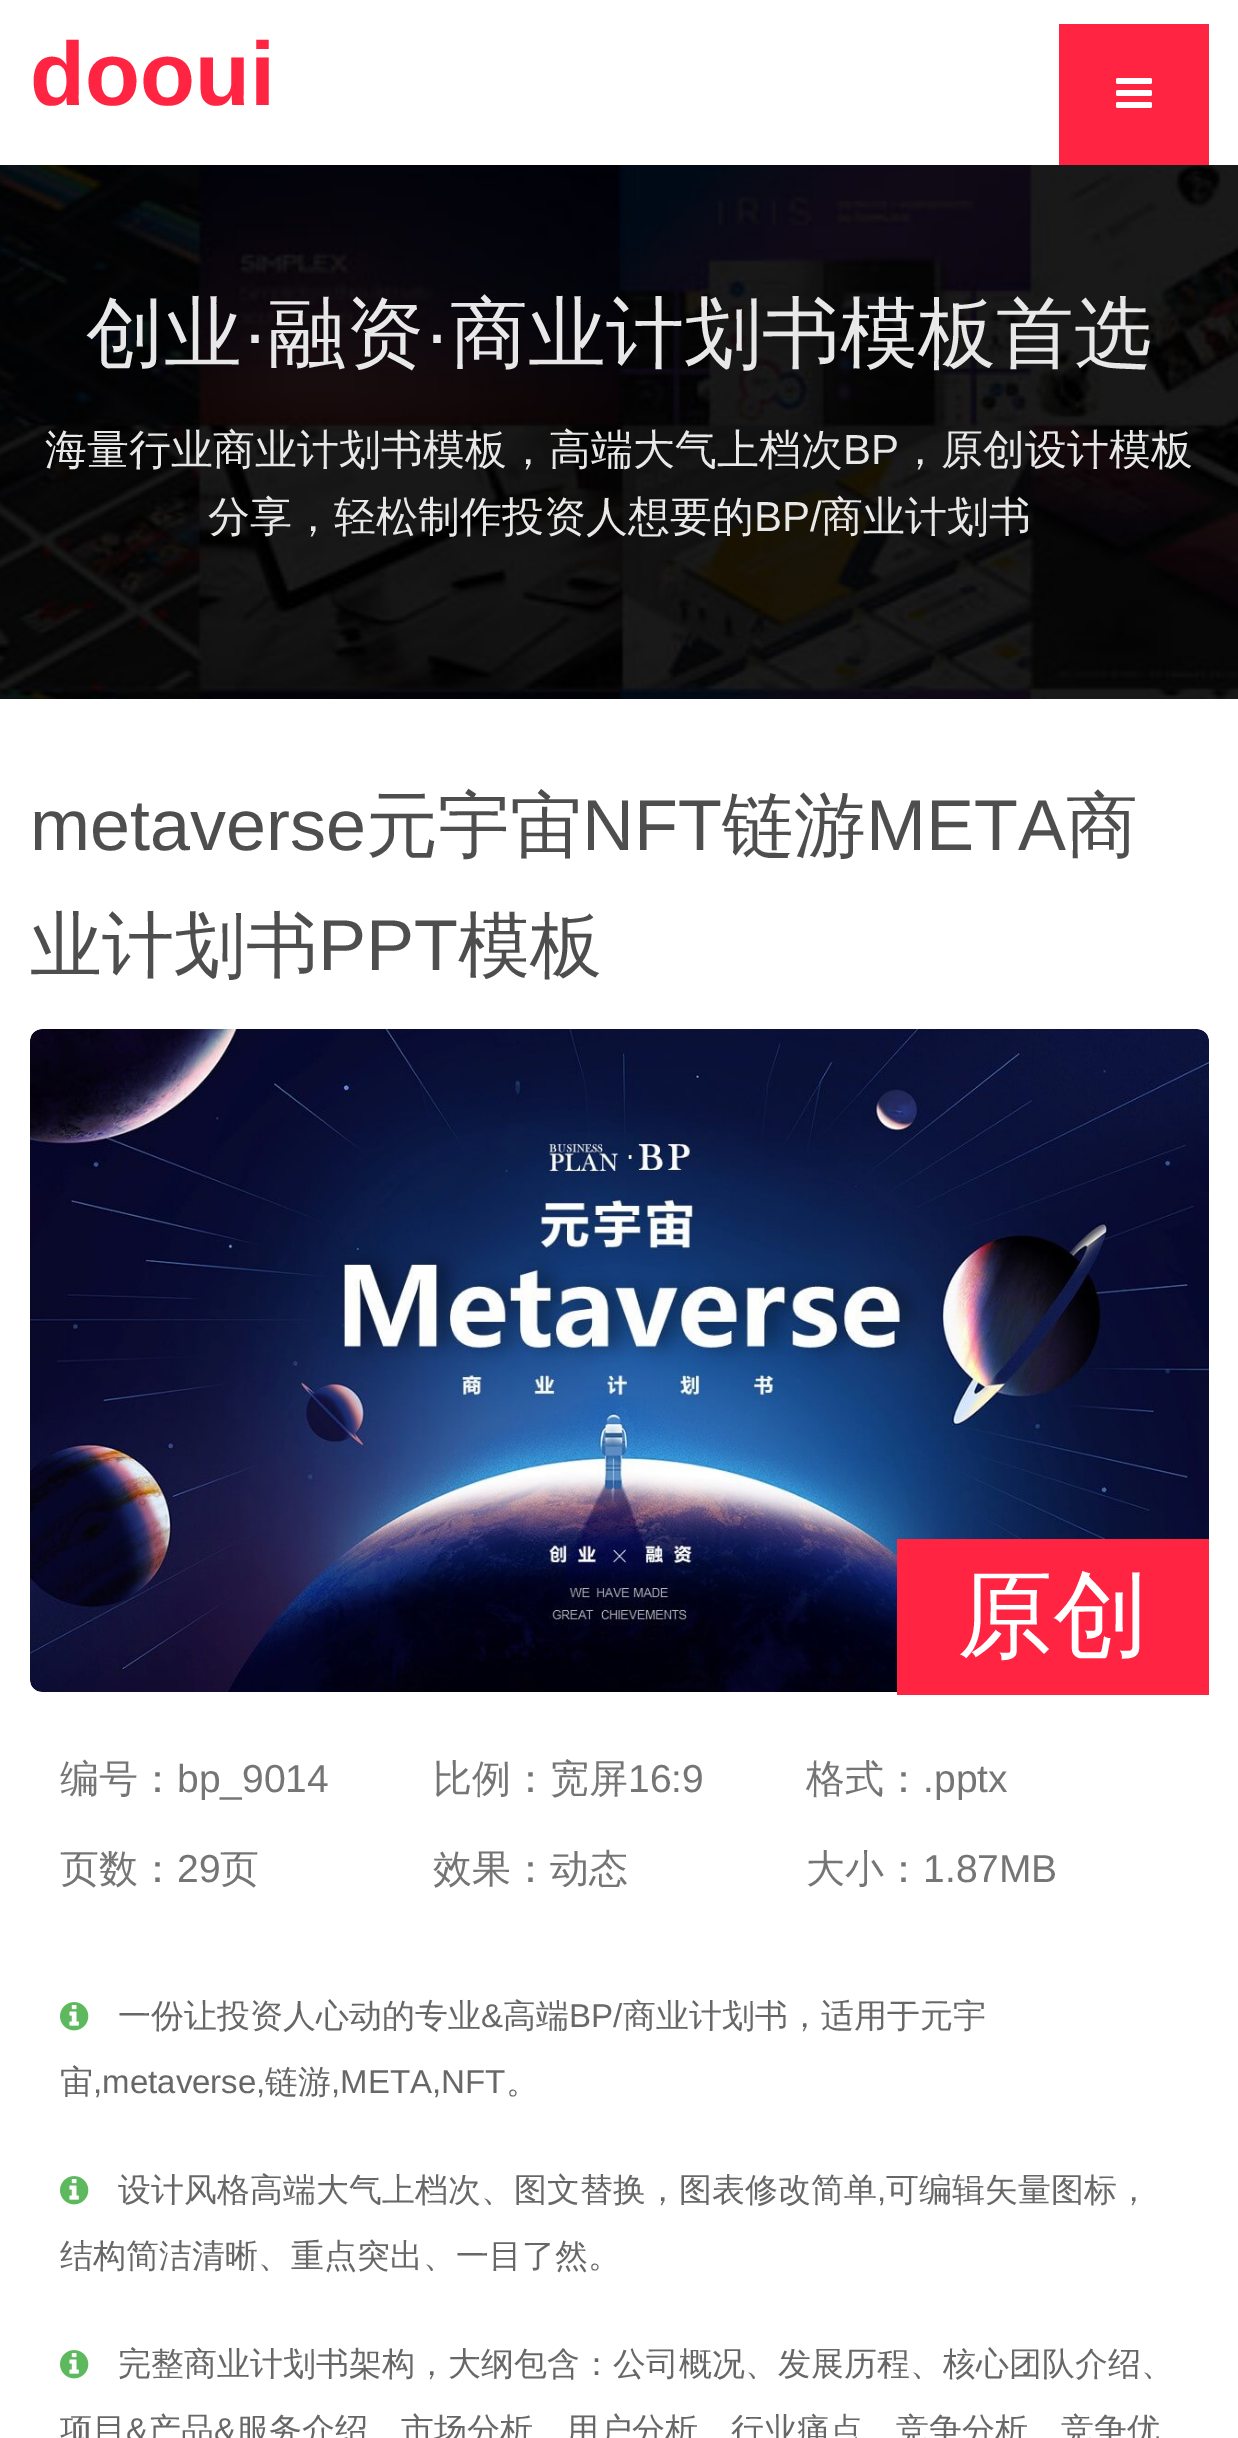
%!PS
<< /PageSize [1238 2438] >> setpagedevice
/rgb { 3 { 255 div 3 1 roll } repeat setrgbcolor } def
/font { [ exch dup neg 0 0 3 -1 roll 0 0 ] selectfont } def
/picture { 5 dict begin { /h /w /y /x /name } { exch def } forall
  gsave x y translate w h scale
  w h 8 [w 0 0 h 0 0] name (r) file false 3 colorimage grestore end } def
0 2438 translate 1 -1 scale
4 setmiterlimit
255 255 255 rgb
0 0 1238 2438 rectfill
255 36 66 rgb
1059 24 150 141 rectfill
(img/1.rgb) 1116 78 36 30 picture
(img/2.rgb) 0 165 1238 534 picture
(img/3.rgb) 30 1029 1179 663 picture
897 1539 312 156 rectfill
(img/4.rgb) 60 2002 29 29 picture
(img/4.rgb) 60 2176 29 29 picture
(img/4.rgb) 60 2350 29 29 picture
/LiberationSans-Bold 90 font
30 105 moveto (dooui) show
/WenQuanYiZenHei-Medium 78 font
232 232 232 rgb
86 360 moveto (创业) show
/LiberationSans-Regular 78 font
242 360 moveto (·) show
/WenQuanYiZenHei-Medium 78 font
268 360 moveto (融资) show
/LiberationSans-Regular 78 font
424 360 moveto (·) show
/WenQuanYiZenHei-Medium 78 font
450 360 moveto (商业计划书模板首选) show
/WenQuanYiZenHei-Medium 42 font
45 464 moveto (海量行业商业计划书模板，高端大气上档次) show
/LiberationSans-Regular 42 font
843 464 moveto (BP) show
/WenQuanYiZenHei-Medium 42 font
899 464 moveto (，原创设计模板) show
208 531 moveto (分享，轻松制作投资人想要的) show
/LiberationSans-Regular 42 font
754 531 moveto (BP/) show
/WenQuanYiZenHei-Medium 42 font
821 531 moveto (商业计划书) show
/LiberationSans-Regular 72 font
78 78 78 rgb
30 850 moveto (metaverse) show
/WenQuanYiZenHei-Medium 72 font
366 850 moveto (元宇宙) show
/LiberationSans-Regular 72 font
582 850 moveto (NFT) show
/WenQuanYiZenHei-Medium 72 font
722 850 moveto (链游) show
/LiberationSans-Regular 72 font
866 850 moveto (META) show
/WenQuanYiZenHei-Medium 72 font
1066 850 moveto (商) show
30 970 moveto (业计划书) show
/LiberationSans-Regular 72 font
318 970 moveto (PPT) show
/WenQuanYiZenHei-Medium 72 font
458 970 moveto (模板) show
/WenQuanYiZenHei-Medium 96 font
255 255 255 rgb
957 1648 moveto (原创) show
/WenQuanYiZenHei-Medium 39 font
117 117 117 rgb
60 1792 moveto (编号：) show
/LiberationSans-Regular 39 font
177 1792 moveto (bp_9014) show
/WenQuanYiZenHei-Medium 39 font
60 1882 moveto (页数：) show
/LiberationSans-Regular 39 font
177 1882 moveto (29) show
/WenQuanYiZenHei-Medium 39 font
220 1882 moveto (页) show
433 1792 moveto (比例：宽屏) show
/LiberationSans-Regular 39 font
628 1792 moveto (16:9) show
/WenQuanYiZenHei-Medium 39 font
433 1882 moveto (效果：动态) show
806 1792 moveto (格式：) show
/LiberationSans-Regular 39 font
923 1792 moveto (.pptx) show
/WenQuanYiZenHei-Medium 39 font
806 1882 moveto (大小：) show
/LiberationSans-Regular 39 font
923 1882 moveto (1.87MB) show
/WenQuanYiZenHei-Medium 33 font
103 103 103 rgb
118 2027 moveto (一份让投资人心动的专业) show
/LiberationSans-Regular 33 font
481 2027 moveto (&) show
/WenQuanYiZenHei-Medium 33 font
503 2027 moveto (高端) show
/LiberationSans-Regular 33 font
569 2027 moveto (BP/) show
/WenQuanYiZenHei-Medium 33 font
623 2027 moveto (商业计划书，适用于元宇) show
60 2093 moveto (宙) show
/LiberationSans-Regular 33 font
93 2093 moveto (,metaverse,) show
/WenQuanYiZenHei-Medium 33 font
265 2093 moveto (链游) show
/LiberationSans-Regular 33 font
331 2093 moveto (,META,NFT) show
/WenQuanYiZenHei-Medium 33 font
506 2093 moveto (。) show
118 2201 moveto (设计风格高端大气上档次、图文替换，图表修改简单) show
/LiberationSans-Regular 33 font
877 2201 moveto (,) show
/WenQuanYiZenHei-Medium 33 font
[
  [(可编辑矢量图标，) 886 2201]
  [(结构简洁清晰、重点突出、一目了然。) 60 2267]
  [(完整商业计划书架构，大纲包含：公司概况、发展历程、核心团队介绍、) 118 2375]
  [(项目) 60 2441]
] { aload pop moveto show } forall
/LiberationSans-Regular 33 font
126 2441 moveto (&) show
/WenQuanYiZenHei-Medium 33 font
148 2441 moveto (产品) show
/LiberationSans-Regular 33 font
214 2441 moveto (&) show
/WenQuanYiZenHei-Medium 33 font
236 2441 moveto (服务介绍、市场分析、用户分析、行业痛点、竞争分析、竞争优) show
showpage
